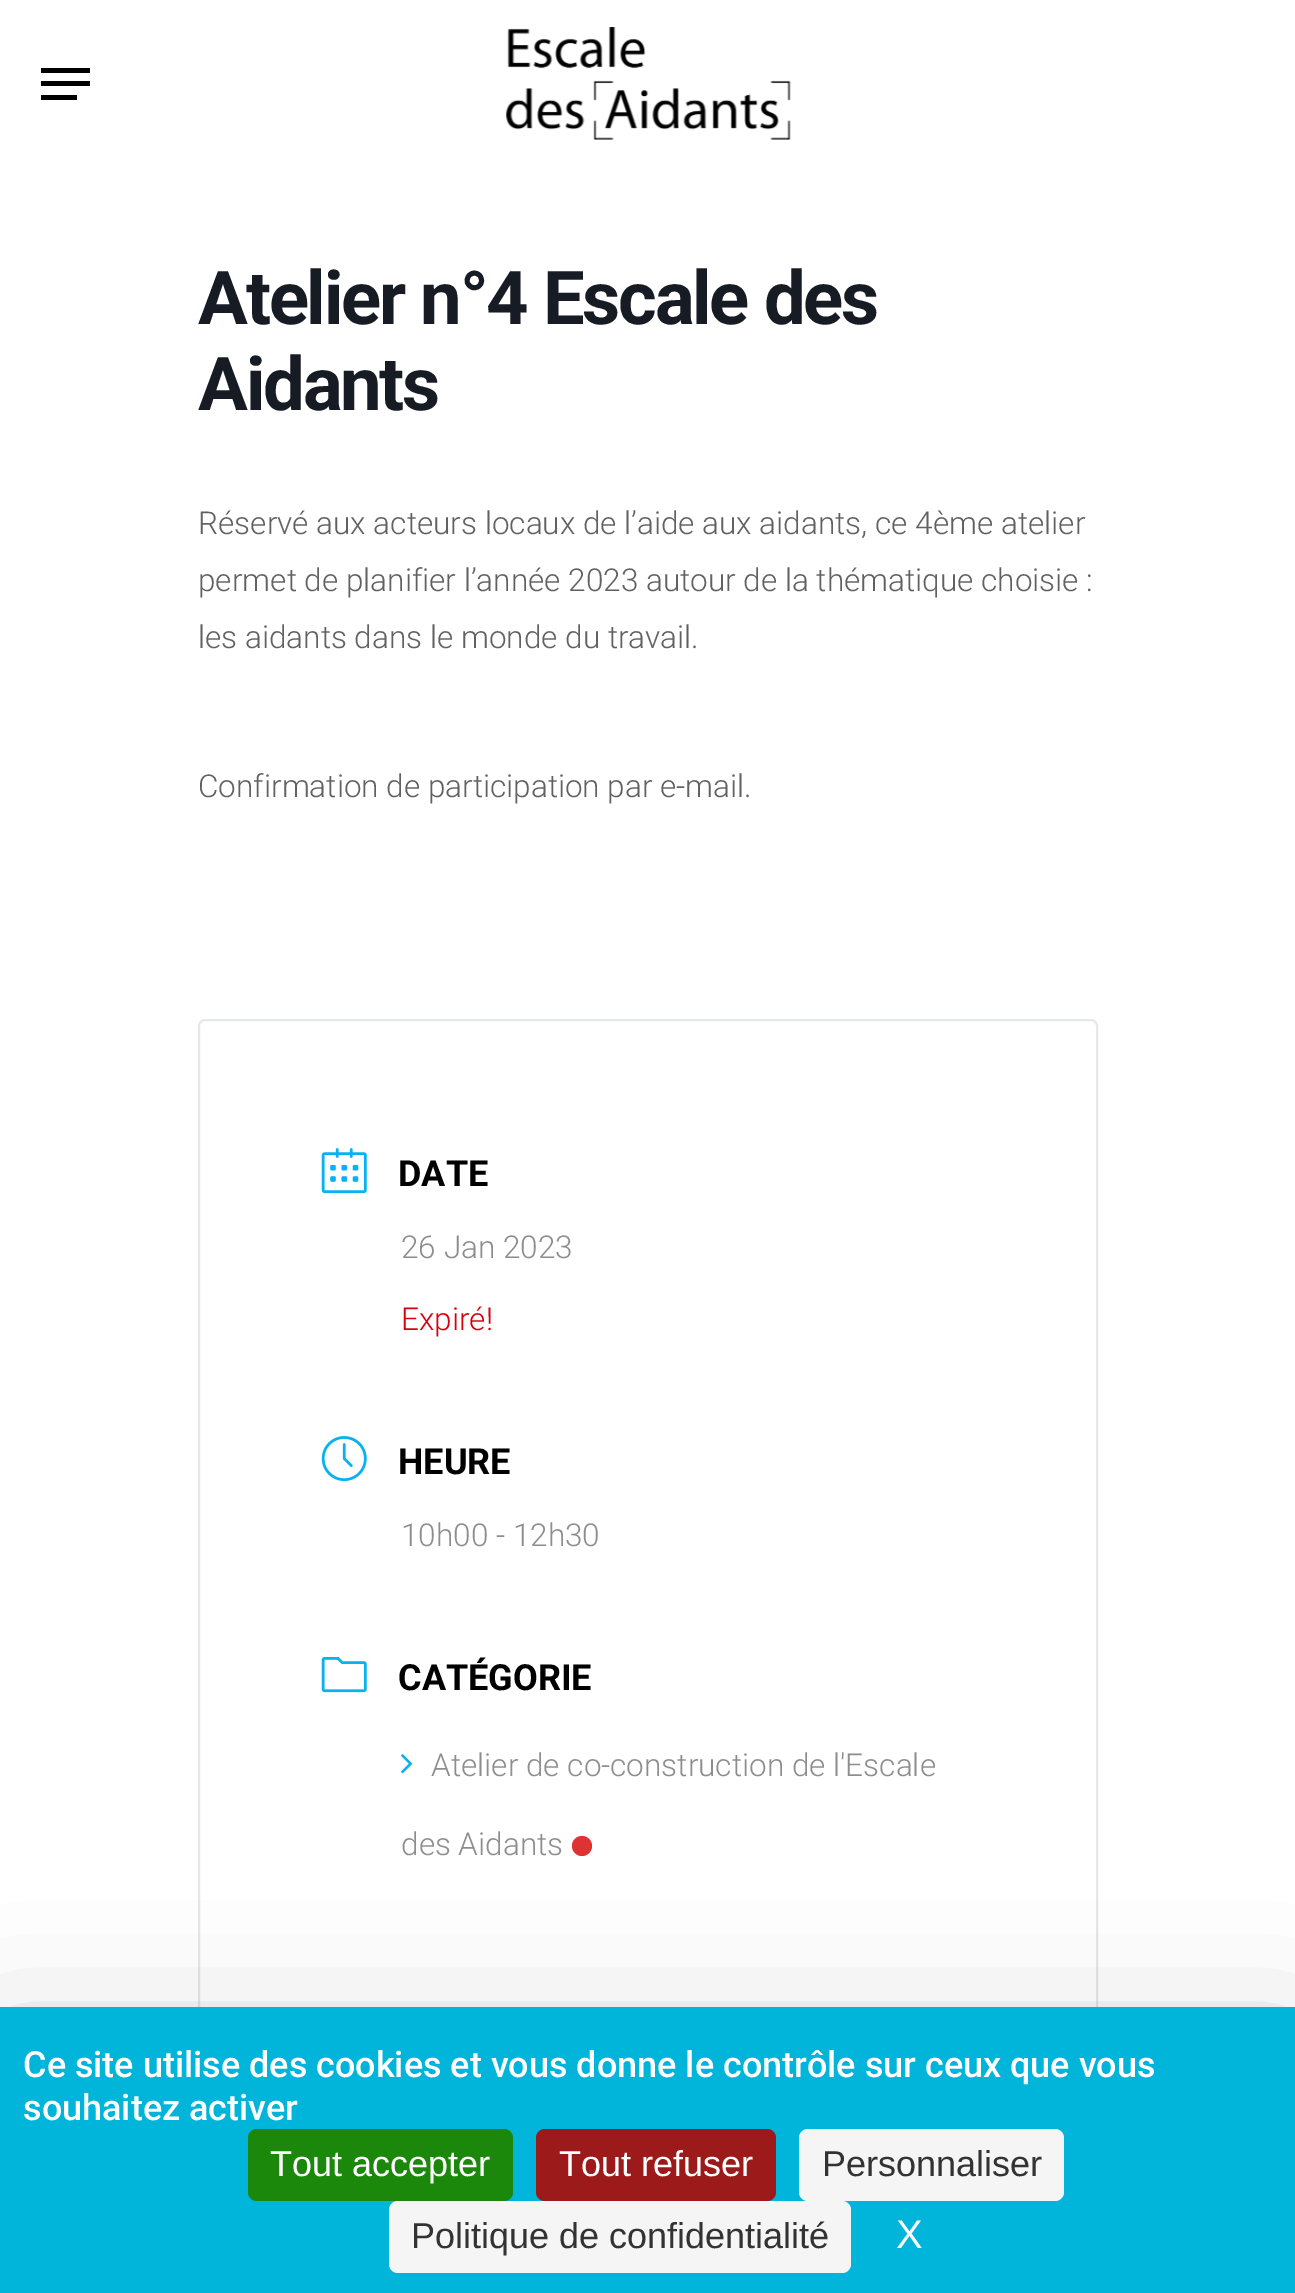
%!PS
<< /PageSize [1295 2293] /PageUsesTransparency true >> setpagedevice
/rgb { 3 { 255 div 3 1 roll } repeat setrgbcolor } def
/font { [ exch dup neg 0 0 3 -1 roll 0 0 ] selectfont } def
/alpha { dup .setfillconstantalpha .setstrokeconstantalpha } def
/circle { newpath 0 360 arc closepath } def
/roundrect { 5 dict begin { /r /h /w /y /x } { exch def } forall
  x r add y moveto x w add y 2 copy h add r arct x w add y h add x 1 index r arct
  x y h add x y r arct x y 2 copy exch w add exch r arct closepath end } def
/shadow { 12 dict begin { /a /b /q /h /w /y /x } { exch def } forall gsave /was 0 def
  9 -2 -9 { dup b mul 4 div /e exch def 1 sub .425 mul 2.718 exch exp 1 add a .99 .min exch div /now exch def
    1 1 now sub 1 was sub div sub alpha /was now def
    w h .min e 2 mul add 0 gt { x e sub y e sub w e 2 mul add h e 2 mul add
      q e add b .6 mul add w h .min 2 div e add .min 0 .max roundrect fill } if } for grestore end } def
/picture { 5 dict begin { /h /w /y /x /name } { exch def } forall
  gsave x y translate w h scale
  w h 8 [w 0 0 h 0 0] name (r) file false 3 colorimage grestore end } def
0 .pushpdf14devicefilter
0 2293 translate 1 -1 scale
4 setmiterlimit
255 255 255 rgb
0 0 1295 2293 rectfill
[
  [41 68 49 5 0 0 0]
  [41 95 36 5 0 0 0]
  [41 81 49 5 0 0 0]
] { aload pop rgb rectfill } forall
(img/1.rgb) 505 27 286 113 picture
230 231 232 rgb
2 setlinewidth
199 1020 898 1000 6 roundrect stroke
(img/2.rgb) 321 1148 46 46 picture
(img/3.rgb) 321 1436 46 46 picture
(img/4.rgb) 321 1657 46 36 picture
(img/5.rgb) 401 1754 12 20 picture
221 51 51 rgb
582 1846 10 circle fill
0 0 0 rgb
0 2052 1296 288 0 67.5 0.25 shadow
0 181 217 rgb
0 2007 1295 286 rectfill
27 135 11 rgb
248 2129 265 72 9 roundrect fill
156 26 26 rgb
536 2129 240 72 9 roundrect fill
245 245 245 rgb
799 2129 265 72 9 roundrect fill
389 2201 462 72 9 roundrect fill
/Roboto-Bold 74.25 font
23 28 36 rgb
198 324 moveto -2.25 0 (Atelier n°4 Escale des) ashow
198 410 moveto -2.25 0 (Aidants) ashow
/Roboto-Light 31.5 font
97 97 97 rgb
[
  [(Réservé aux acteurs locaux de l’aide aux aidants, ce 4ème atelier) 198 534]
  [(permet de planifier l’année 2023 autour de la thématique choisie :) 198 591]
  [(les aidants dans le monde du travail.) 198 648]
  [(Confirmation de participation par e-mail.) 198 797]
] { aload pop moveto show } forall
/Roboto-Bold 36 font
0 0 0 rgb
398 1186 moveto (DATE) show
/Roboto-Light 31.5 font
141 141 141 rgb
401 1258 moveto (26 Jan 2023) show
216 0 12 rgb
401 1330 moveto (Expiré!) show
/Roboto-Bold 36 font
0 0 0 rgb
398 1474 moveto (HEURE) show
/Roboto-Light 31.5 font
141 141 141 rgb
401 1546 moveto (10h00 - 12h30) show
/Roboto-Bold 36 font
0 0 0 rgb
398 1690 moveto (CATÉGORIE) show
/Roboto-Light 31.5 font
141 141 141 rgb
431 1776 moveto (Atelier de co-construction de l'Escale) show
401 1855 moveto (des Aidants) show
/Roboto-Medium 36 font
255 255 255 rgb
23 2077 moveto (Ce site utilise des cookies et vous donne le contrôle sur ceux que vous) show
23 2120 moveto (souhaitez activer) show
/LiberationSans-Regular 36 font
270 2176 moveto (Tout accepter) show
559 2176 moveto (Tout refuser) show
51 51 51 rgb
822 2176 moveto (Personnaliser) show
411 2248 moveto (Politique de confidentialité) show
/LiberationSans-Regular 40 font
255 255 255 rgb
896 2248 moveto (X) show
.poppdf14devicefilter showpage
